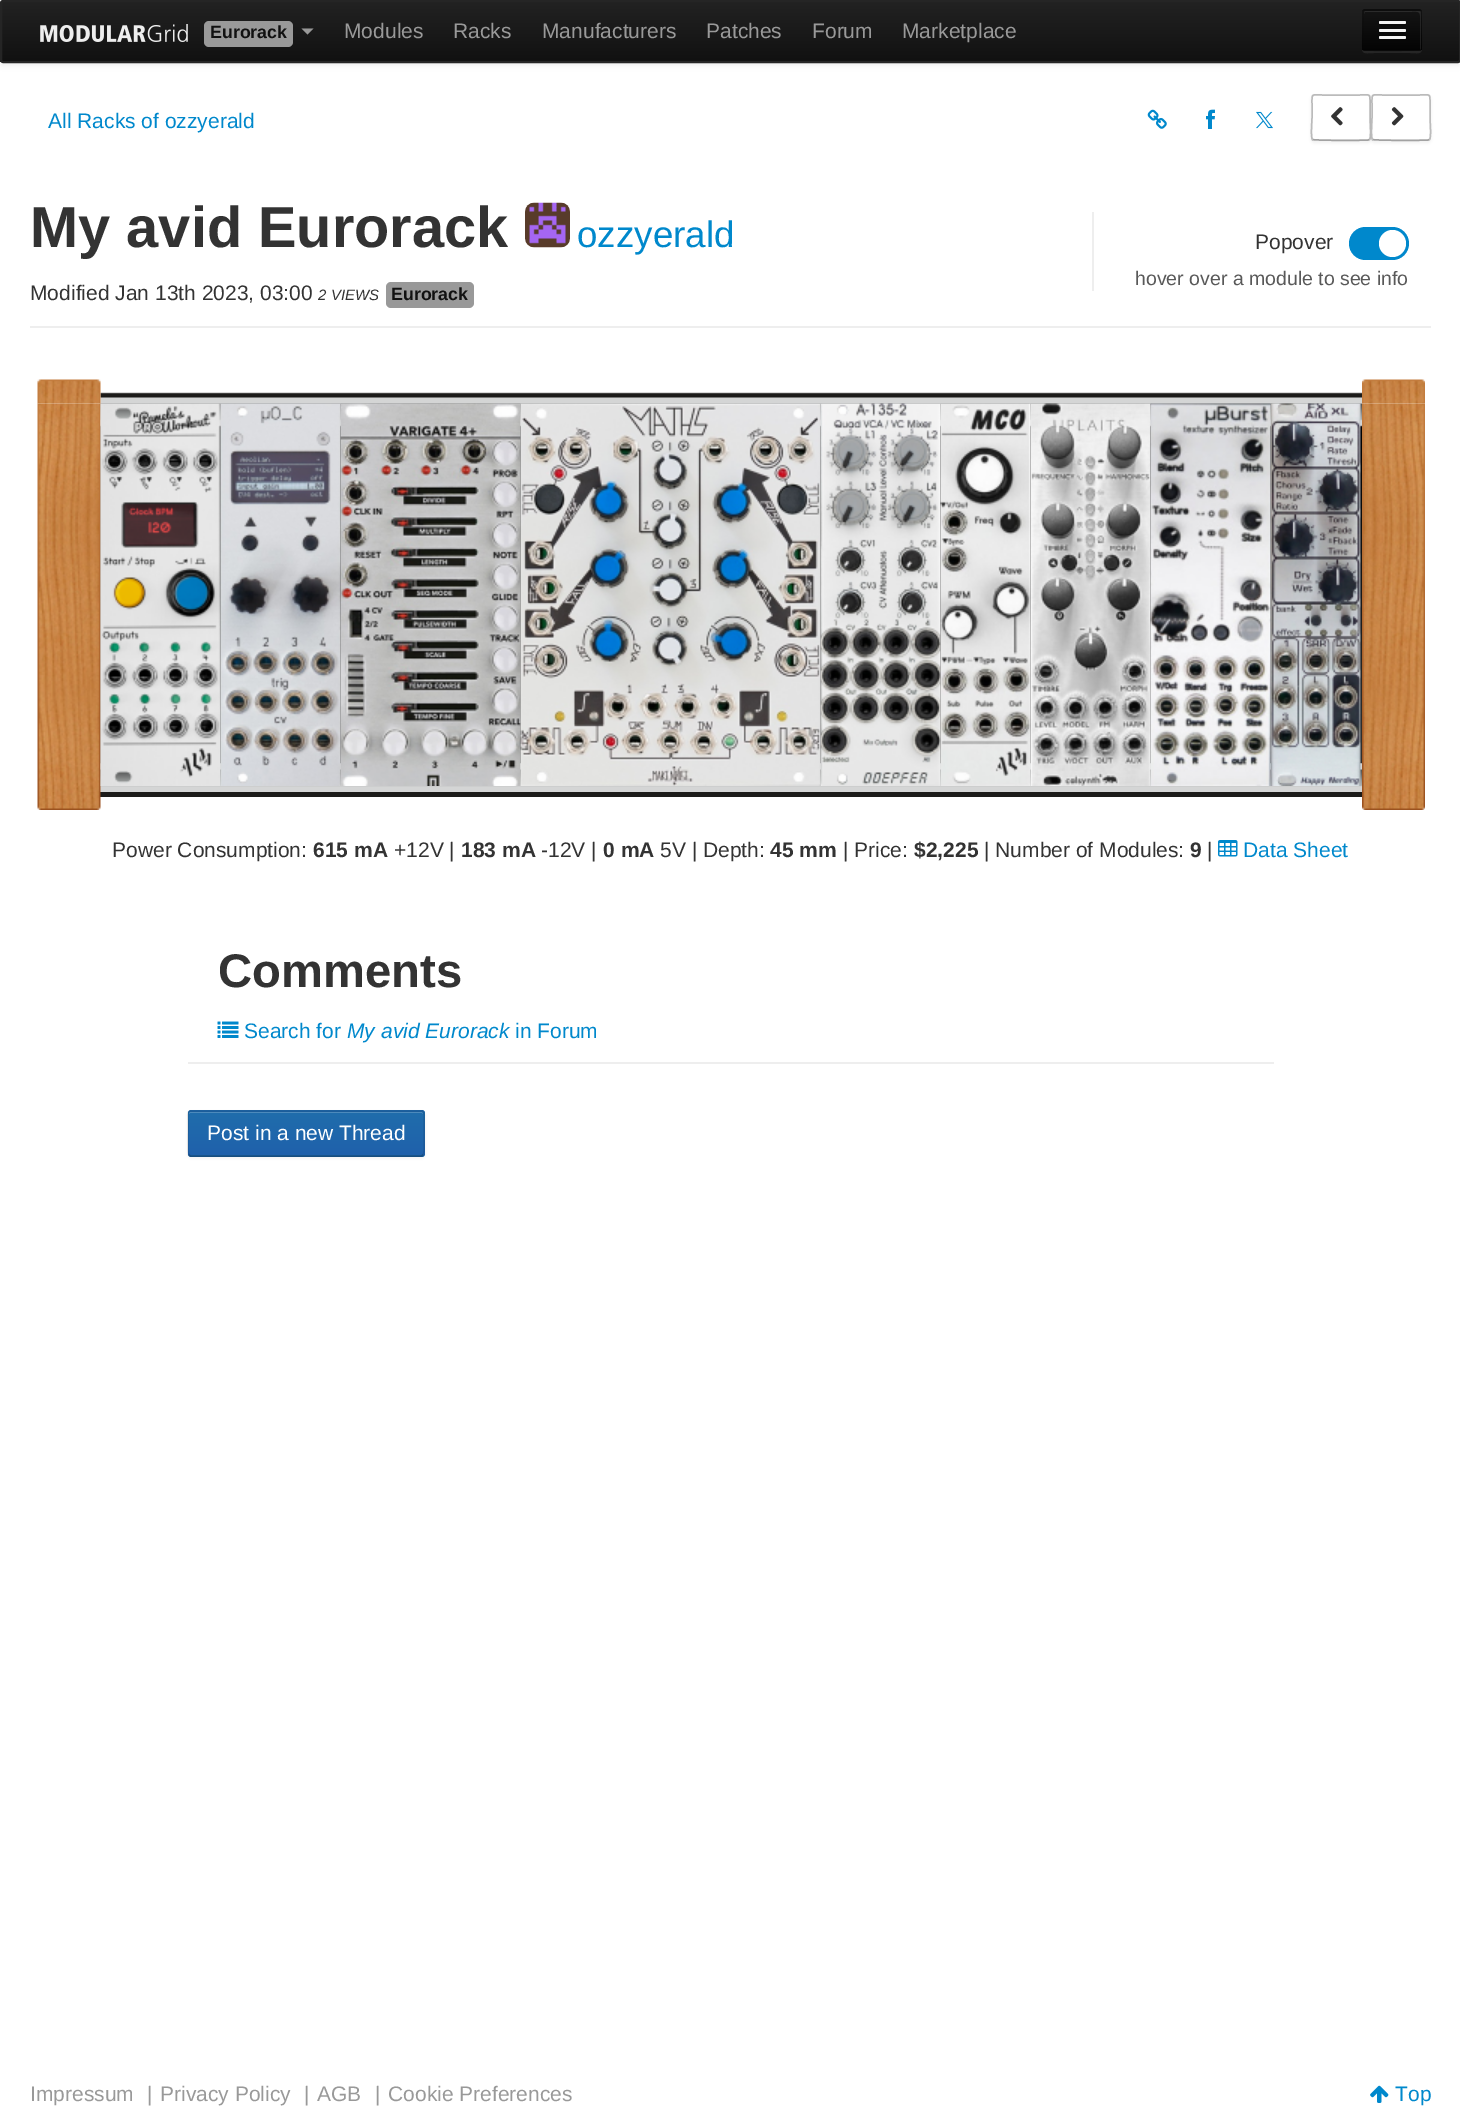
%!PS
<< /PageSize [1460 2123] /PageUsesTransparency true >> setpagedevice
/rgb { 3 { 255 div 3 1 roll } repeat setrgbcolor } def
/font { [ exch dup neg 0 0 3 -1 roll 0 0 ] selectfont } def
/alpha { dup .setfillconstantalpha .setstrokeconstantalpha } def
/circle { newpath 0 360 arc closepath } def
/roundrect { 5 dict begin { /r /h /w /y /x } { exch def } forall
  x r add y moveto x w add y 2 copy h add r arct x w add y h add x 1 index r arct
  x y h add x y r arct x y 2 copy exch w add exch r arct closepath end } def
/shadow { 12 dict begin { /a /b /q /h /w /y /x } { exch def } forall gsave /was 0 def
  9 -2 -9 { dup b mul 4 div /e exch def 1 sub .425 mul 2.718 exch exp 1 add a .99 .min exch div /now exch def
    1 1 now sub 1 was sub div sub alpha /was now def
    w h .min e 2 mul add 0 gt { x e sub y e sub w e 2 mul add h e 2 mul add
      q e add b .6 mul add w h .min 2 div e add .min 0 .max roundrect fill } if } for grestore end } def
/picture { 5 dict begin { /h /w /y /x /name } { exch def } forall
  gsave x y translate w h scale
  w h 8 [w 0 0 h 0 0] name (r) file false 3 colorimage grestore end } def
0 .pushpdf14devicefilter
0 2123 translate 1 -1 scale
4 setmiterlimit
255 255 255 rgb
0 0 1460 2123 rectfill
0 0 0 rgb
0 2 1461 63 3 3 0.07 shadow
gsave
0 0 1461 63 3 roundrect clip newpath
gsave 0 2 moveto 1459 2 lineto 1459 62 lineto 0 62 lineto closepath clip newpath
<< /ShadingType 2 /ColorSpace /DeviceRGB /Coords [731 1.5 731 62] /Extend [true true] /Function << /FunctionType 2 /Domain [0 1] /C0 [0.133 0.133 0.133] /C1 [0.067 0.067 0.067] /N 1 >> >> shfill grestore
grestore
37 37 37 rgb
2 setlinewidth
1 1 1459 61 2 roundrect stroke
(img/1.rgb) 40 24 148 18 picture
153 153 153 rgb
204 21 89 26 5 roundrect fill
301.5 28.5 moveto 313.5 28.5 lineto 307.5 34.5 lineto closepath fill
38 38 38 rgb
1362 48 moveto 1362 55 1367 53 1374 53 curveto 1410 53 lineto 1417 53 1422 55 1422 48 curveto 1422 50 1421 51 1419 51 curveto 1365 51 lineto 1363 51 1362 50 1362 48 curveto closepath fill
14 14 14 rgb
1362 9 60 42 3 roundrect fill
gsave
1362 9 60 42 3 roundrect clip newpath
gsave 1362 11 moveto 1422 11 lineto 1422 50 lineto 1362 50 lineto closepath clip newpath
<< /ShadingType 2 /ColorSpace /DeviceRGB /Coords [1392 10 1392 50] /Extend [true true] /Function << /FunctionType 2 /Domain [0 1] /C0 [0.082 0.082 0.082] /C1 [0.016 0.016 0.016] /N 1 >> >> shfill grestore
grestore
0.1 alpha
255 255 255 rgb
1365 12 moveto 1402 12 lineto 1423 12 1420 8 1420 28 curveto 1420 50 lineto 1420 50 1421 49 1421 48 curveto 1421 12 lineto 1421 12 1420 11 1420 11 curveto 1366 11 lineto 1365 11 1364 12 1364 12 curveto 1364 14 lineto 1364 13 1364 12 1365 12 curveto closepath fill
0.25 alpha
0 0 0 rgb
1.5 setlinewidth
1420.5 49.5 moveto 1419.5 50.5 1369.5 50.5 1365 50 curveto 1363.5 49.5 lineto stroke
0.1 alpha
1363.5 49.5 moveto 1361.5 48 1363 33 1363 30 curveto 1363 18 lineto 1363 7.5 1362.5 10 1374 10 curveto 1410 10 lineto 1421.5 10 1421 7.5 1421 18 curveto 1421 30 lineto 1421 33 1422.5 48 1420.5 49.5 curveto stroke
1 alpha
11 11 11 rgb
1379 24 moveto 1377.5 27 1384.5 26 1384.5 26 curveto 1405 26 lineto 1406 25.5 1406.5 24 1405.5 23 curveto 1404 24 lineto 1402 24.5 1380 24.5 1379 24 curveto closepath fill
245 245 245 rgb
1379 21 27 3 1.5 roundrect fill
8 8 8 rgb
1379 31 moveto 1378.5 34 1384 33 1384.5 33 curveto 1404.5 33 lineto 1406 33 1406.5 31 1405.5 30.5 curveto 1404.5 31.5 lineto 1403 32 1379.5 31.5 1379 31 curveto closepath fill
245 245 245 rgb
1379 29 27 3 1.5 roundrect fill
1379 36 27 3 1.5 roundrect fill
(img/2.rgb) 1147 109 20 20 picture
(img/3.rgb) 1206 109 9 20 picture
(img/4.rgb) 1256 111 17 18 picture
gsave
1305 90 moveto 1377 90 lineto 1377 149 lineto 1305 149 lineto closepath 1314 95 moveto 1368 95 lineto 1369.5 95 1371 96.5 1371 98 curveto 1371 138 lineto 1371 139.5 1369.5 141 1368 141 curveto 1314 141 lineto 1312.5 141 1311 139.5 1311 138 curveto 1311 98 lineto 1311 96.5 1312.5 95 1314 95 curveto closepath eoclip newpath
0 0 0 rgb
1311 96 60 47 3 1.5 0.05 shadow
grestore
162 162 162 rgb
1369.5 139.5 moveto 1368 140 lineto 1363.5 140.5 1313.5 140.5 1312.5 139.5 curveto stroke
187 187 187 rgb
1312.5 139.5 moveto 1310.5 138 1312 121 1312 118 curveto 1312 104 lineto 1312 93 1311 95 1323 95 curveto 1359 95 lineto 1371 95 1370 93 1370 104 curveto 1370 118 lineto 1370 121 1371.5 138 1369.5 139.5 curveto stroke
(img/5.rgb) 1331 107 12 19 picture
gsave
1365 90 moveto 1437 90 lineto 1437 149 lineto 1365 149 lineto closepath 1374 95 moveto 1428 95 lineto 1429.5 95 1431 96.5 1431 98 curveto 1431 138 lineto 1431 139.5 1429.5 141 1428 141 curveto 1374 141 lineto 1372.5 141 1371 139.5 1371 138 curveto 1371 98 lineto 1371 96.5 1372.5 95 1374 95 curveto closepath eoclip newpath
0 0 0 rgb
1371 96 60 47 3 1.5 0.05 shadow
grestore
162 162 162 rgb
1429.5 139.5 moveto 1428 140 lineto 1423.5 140.5 1373.5 140.5 1372.5 139.5 curveto stroke
187 187 187 rgb
1372.5 139.5 moveto 1370.5 138 1372 121 1372 118 curveto 1372 104 lineto 1372 93 1371 95 1383 95 curveto 1419 95 lineto 1431 95 1430 93 1430 104 curveto 1430 118 lineto 1430 121 1431.5 138 1429.5 139.5 curveto stroke
(img/6.rgb) 1391 107 13 19 picture
238 238 238 rgb
30 326 1401 2 rectfill
(img/7.rgb) 525 202 45 46 picture
153 153 153 rgb
386 282 88 26 5 roundrect fill
238 238 238 rgb
1092 212 2 79 rectfill
0 136 204 rgb
1349 227 60 33 16.5 roundrect fill
255 255 255 rgb
1392.5 243.5 13.5 circle fill
(img/9.rgb) 100 392 1262 12 picture
(img/12.rgb) 100 403 1262 389 picture
(img/11.rgb) 37 403 64 389 picture
(img/14.rgb) 100 403 121 383 picture
(img/8.rgb) 37 379 64 25 picture
(img/13.rgb) 1362 403 63 389 picture
(img/10.rgb) 1362 379 63 25 picture
(img/16.rgb) 340 403 181 383 picture
(img/15.rgb) 220 403 121 383 picture
(img/18.rgb) 820 403 121 383 picture
(img/17.rgb) 520 403 301 383 picture
(img/20.rgb) 1030 403 121 383 picture
(img/19.rgb) 940 403 91 383 picture
(img/22.rgb) 1270 403 91 383 picture
(img/21.rgb) 1150 403 121 383 picture
28 27 25 rgb
100 792 1262 5 rectfill
(img/23.rgb) 37 792 64 18 picture
(img/24.rgb) 1362 792 63 18 picture
(img/25.rgb) 1218 840 20 17 picture
238 238 238 rgb
188 1062 1086 2 rectfill
(img/26.rgb) 217 1021 22 17 picture
0 0 0 rgb
188 1112 237 46 3 1.5 0.05 shadow
31 104 171 rgb
188 1110 237 47 3 roundrect fill
gsave
188 1110 237 47 3 roundrect clip newpath
gsave 188 1112 moveto 425 1112 lineto 425 1155 lineto 188 1155 lineto closepath clip newpath
<< /ShadingType 2 /ColorSpace /DeviceRGB /Coords [306 1112 306 1155] /Extend [true true] /Function << /FunctionType 2 /Domain [0 1] /C0 [0.122 0.427 0.671] /C1 [0.122 0.38 0.671] /N 1 >> >> shfill grestore
grestore
76 138 188 rgb
190 1113 moveto 422 1113 lineto 423 1114 lineto 422 1112 lineto 306 1112 lineto 190 1112 lineto 189 1113 lineto 189 1114 lineto closepath fill
0.25 alpha
0 0 0 rgb
423 1155 moveto 421.5 1156 lineto 190.5 1156 lineto 189 1155 lineto stroke
0.1 alpha
189 1155 moveto 187 1153.5 188 1136.5 188 1133 curveto 188 1120 lineto 188 1119 186.5 1111 190.5 1111 curveto 421.5 1111 lineto 425.5 1111 424 1119 424 1120 curveto 424 1133 lineto 424 1136.5 425 1153.5 423 1155 curveto stroke
1 alpha
(img/27.rgb) 1370 2085 19 18 picture
/LiberationSans-Bold 17.75 font
17 17 17 rgb
210 38 moveto (Eurorack) show
/LiberationSans-Regular 21 font
153 153 153 rgb
[
  [(Modules) 344 38]
  [(Racks) 453 38]
  [(Manufacturers) 542 38]
  [(Patches) 706 38]
  [(Forum) 812 38]
  [(Marketplace) 902 38]
] { aload pop moveto show } forall
0 136 204 rgb
48 128 moveto (All Racks of ozzyerald) show
/LiberationSans-Bold 57.75 font
51 51 51 rgb
30 247 moveto (My avid Eurorack) show
/LiberationSans-Regular 36.75 font
0 136 204 rgb
577 247 moveto (ozzyerald) show
/LiberationSans-Regular 21 font
51 51 51 rgb
30 300 moveto (Modified Jan 13th 2023, 03:00) show
/LiberationSans-Italic 15 font
318 300 moveto (2 VIEWS) show
/LiberationSans-Bold 17.75 font
17 17 17 rgb
391 300 moveto (Eurorack) show
/LiberationSans-Regular 21 font
51 51 51 rgb
1255 249 moveto (Popover) show
/LiberationSans-Regular 19.5 font
89 89 89 rgb
1135 285 moveto (hover over a module to see info) show
/LiberationSans-Regular 21 font
51 51 51 rgb
112 857 moveto (Power Consumption:) show
/LiberationSans-Bold 21 font
313 857 moveto (615 mA) show
/LiberationSans-Regular 21 font
394 857 moveto (+12V |) show
/LiberationSans-Bold 21 font
461 857 moveto (183 mA) show
/LiberationSans-Regular 21 font
541 857 moveto (-12V |) show
/LiberationSans-Bold 21 font
603 857 moveto (0 mA) show
/LiberationSans-Regular 21 font
660 857 moveto (5V | Depth:) show
/LiberationSans-Bold 21 font
770 857 moveto (45 mm) show
/LiberationSans-Regular 21 font
843 857 moveto (| Price:) show
/LiberationSans-Bold 21 font
914 857 moveto ($2,225) show
/LiberationSans-Regular 21 font
984 857 moveto (| Number of Modules:) show
/LiberationSans-Bold 21 font
1190 857 moveto (9) show
/LiberationSans-Regular 21 font
1207 857 moveto (|) show
0 136 204 rgb
1243 857 moveto (Data Sheet) show
/LiberationSans-Bold 47.25 font
51 51 51 rgb
218 987 moveto (Comments) show
/LiberationSans-Regular 21 font
0 136 204 rgb
244 1038 moveto (Search for) show
/LiberationSans-Italic 21 font
347 1038 moveto (My avid Eurorack) show
/LiberationSans-Regular 21 font
515 1038 moveto (in Forum) show
255 255 255 rgb
207 1140 moveto (Post in a new Thread) show
153 153 153 rgb
[
  [(Impressum) 30 2101]
  [(|) 147 2101]
  [(Privacy Policy) 160 2101]
  [(|) 304 2101]
  [(AGB) 317 2101]
  [(|) 375 2101]
  [(Cookie Preferences) 388 2101]
] { aload pop moveto show } forall
0 136 204 rgb
1395 2101 moveto (Top) show
.poppdf14devicefilter showpage
